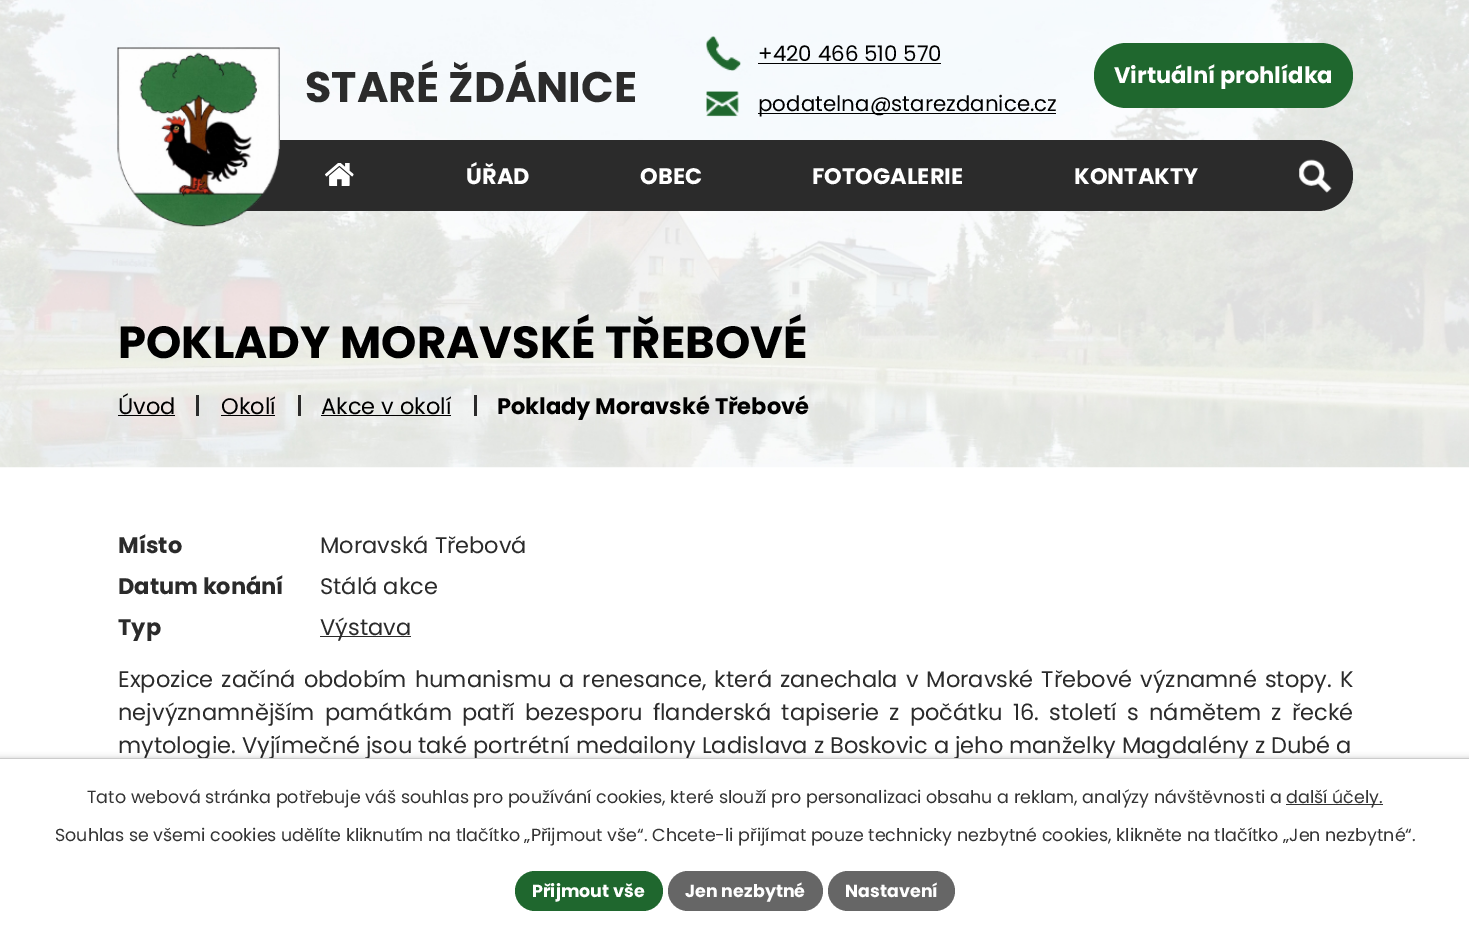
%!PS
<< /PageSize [1469 934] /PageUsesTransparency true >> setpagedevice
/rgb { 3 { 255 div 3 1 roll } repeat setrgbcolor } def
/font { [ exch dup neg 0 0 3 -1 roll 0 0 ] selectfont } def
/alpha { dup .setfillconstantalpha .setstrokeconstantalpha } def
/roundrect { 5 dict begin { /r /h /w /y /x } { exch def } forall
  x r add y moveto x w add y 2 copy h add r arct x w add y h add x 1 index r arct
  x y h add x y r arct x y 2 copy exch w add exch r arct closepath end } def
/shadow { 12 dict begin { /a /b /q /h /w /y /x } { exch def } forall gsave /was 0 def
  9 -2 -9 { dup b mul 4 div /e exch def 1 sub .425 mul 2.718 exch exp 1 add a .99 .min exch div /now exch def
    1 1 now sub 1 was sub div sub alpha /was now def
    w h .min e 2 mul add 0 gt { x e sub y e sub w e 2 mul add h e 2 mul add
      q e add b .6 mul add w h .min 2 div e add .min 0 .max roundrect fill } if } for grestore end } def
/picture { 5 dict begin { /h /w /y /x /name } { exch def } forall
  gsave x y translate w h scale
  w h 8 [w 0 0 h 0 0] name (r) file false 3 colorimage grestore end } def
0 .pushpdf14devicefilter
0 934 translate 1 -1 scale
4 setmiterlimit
255 255 255 rgb
0 0 1469 934 rectfill
(img/5.rgb) 0 0 1469 468 picture
43 43 43 rgb
163 140 1190 71 35.5 roundrect fill
(img/1.rgb) 117 47 163 180 picture
(img/2.rgb) 706 36 35 35 picture
0 0 0 rgb
758 63 183 1 rectfill
(img/3.rgb) 706 91 33 26 picture
758 113 298 1 rectfill
31 103 46 rgb
1094 43 259 65 32.5 roundrect fill
(img/4.rgb) 1299 159 33 34 picture
[
  [118 415 57 1 0 0 0]
  [196 395 3 21 43 43 43]
  [221 415 54 1 0 0 0]
  [298 395 3 21 43 43 43]
  [321 415 130 1 0 0 0]
  [474 395 3 21 43 43 43]
] { aload pop rgb rectfill } forall
(img/6.rgb) 325 163 29 23 picture
320 636 91 1 rectfill
0 0 0 rgb
0 758 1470 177 0 3 0.2 shadow
/Poppins-Bold 42.75 font
43 43 43 rgb
305 102 moveto (STARÉ ŽDÁNICE) show
/Poppins-Regular 21.4 font
0 0 0 rgb
758 61 moveto (+420 466 510 570) show
758 111 moveto (podatelna@starezdanice.cz) show
/Poppins-Bold 22.5 font
255 255 255 rgb
1114 83 moveto (Virtuální prohlídka) show
/Poppins-Bold 45 font
0 0 0 rgb
118 358 moveto (POKLADY MORAVSKÉ TŘEBOVÉ) show
/Poppins-Regular 22.5 font
[
  [(Úvod) 118 414]
  [(Okolí) 221 414]
  [(Akce v okolí) 321 414]
] { aload pop moveto show } forall
/Poppins-Bold 22.5 font
497 414 moveto (Poklady Moravské Třebové) show
255 255 255 rgb
[
  [(ÚŘAD) 466 184]
  [(OBEC) 640 184]
  [(FOTOGALERIE) 812 184]
  [(KONTAKTY) 1074 184]
] { aload pop moveto show } forall
43 43 43 rgb
118 553 moveto (Místo) show
/Poppins-Regular 22.5 font
320 553 moveto (Moravská Třebová) show
/Poppins-Bold 22.5 font
118 594 moveto (Datum konání) show
/Poppins-Regular 22.5 font
320 594 moveto (Stálá akce) show
/Poppins-Bold 22.5 font
118 635 moveto (Typ) show
/Poppins-Regular 22.5 font
320 635 moveto (Výstava) show
118 687 moveto 2 0 32 (Expozice začíná obdobím humanismu a renesance, která zanechala v Moravské Třebové významné stopy. K) widthshow
118 720 moveto 4.25 0 32 (nejvýznamnějším památkám patří bezesporu flanderská tapiserie z počátku 16. století s námětem z řecké) widthshow
118 753 moveto (mytologie. Vyjímečné jsou také portrétní medailony Ladislava z Boskovic a jeho manželky Magdalény z Dubé a) show
255 255 255 rgb
0 759 1469 175 rectfill
204 204 204 rgb
0 758 1469 1 rectfill
/Poppins-Regular 17.5 font
51 51 51 rgb
87 803 moveto (Tato webová stránka potřebuje váš souhlas pro používání cookies, které slouží pro personalizaci obsahu a reklam, analýzy návštěvnosti a) show
1286 804 97 1 rectfill
1286 803 moveto (další účely.) show
55 841 moveto (Souhlas se všemi cookies udělíte kliknutím na tlačítko „Přijmout vše“. Chcete-li přijímat pouze technicky nezbytné cookies, klikněte na tlačítko „Jen nezbytné“.) show
31 103 46 rgb
515 871 148 40 20 roundrect fill
/Poppins-Bold 17.5 font
255 255 255 rgb
532 897 moveto (Přijmout vše) show
102 102 102 rgb
668 871 155 40 20 roundrect fill
255 255 255 rgb
685 897 moveto (Jen nezbytné) show
102 102 102 rgb
828 871 127 40 20 roundrect fill
255 255 255 rgb
845 897 moveto (Nastavení) show
.poppdf14devicefilter showpage
